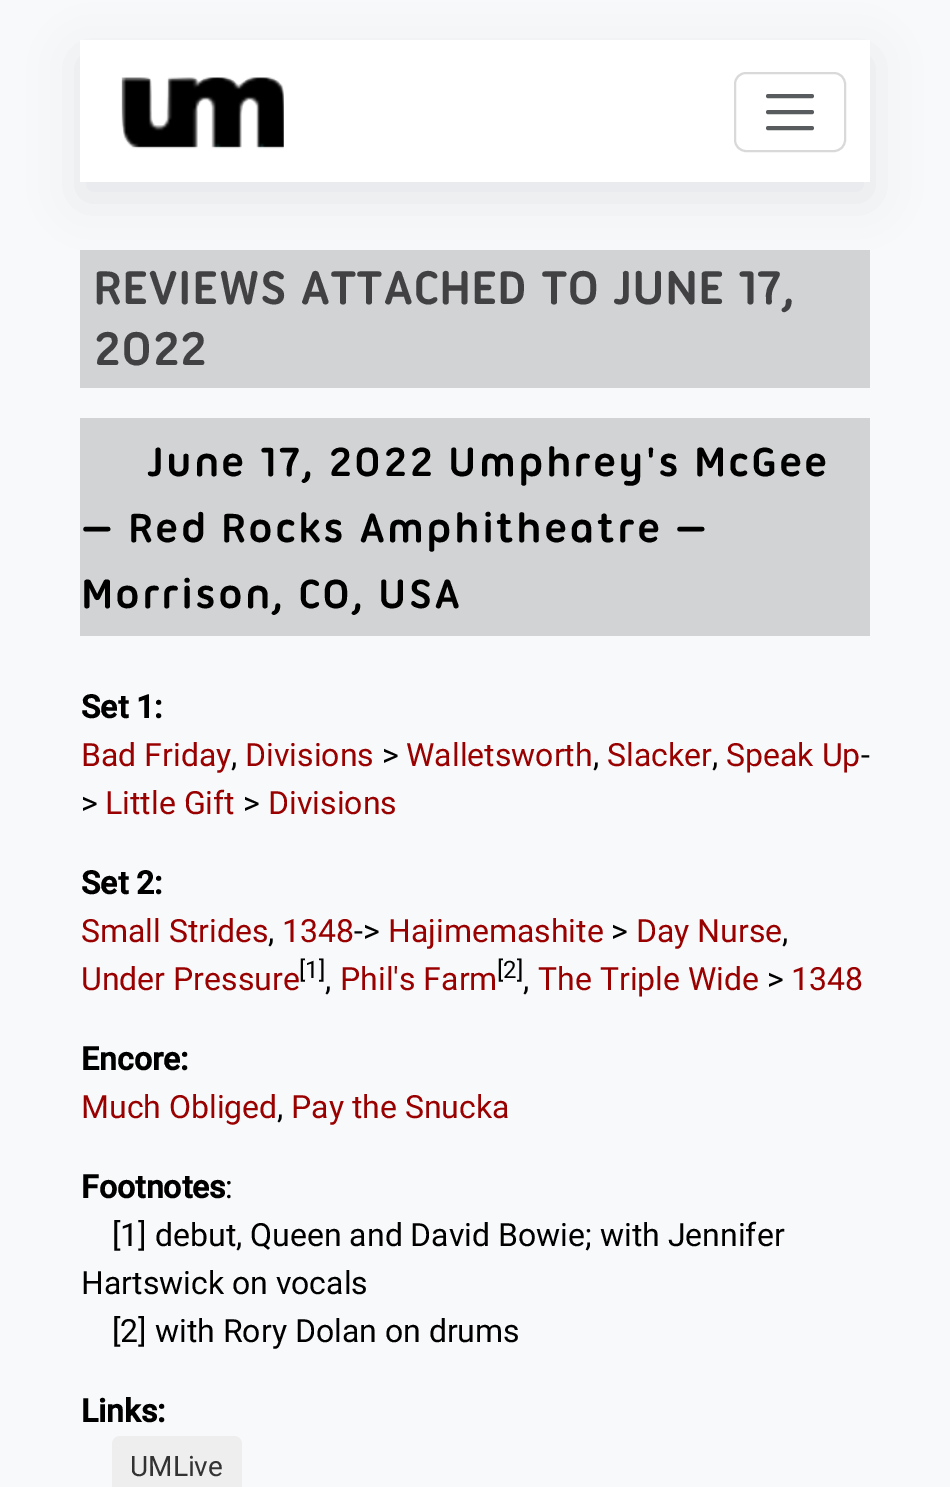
%!PS
<< /PageSize [950 1487] /PageUsesTransparency true >> setpagedevice
/rgb { 3 { 255 div 3 1 roll } repeat setrgbcolor } def
/font { [ exch dup neg 0 0 3 -1 roll 0 0 ] selectfont } def
/alpha { dup .setfillconstantalpha .setstrokeconstantalpha } def
/roundrect { 5 dict begin { /r /h /w /y /x } { exch def } forall
  x r add y moveto x w add y 2 copy h add r arct x w add y h add x 1 index r arct
  x y h add x y r arct x y 2 copy exch w add exch r arct closepath end } def
/shadow { 12 dict begin { /a /b /q /h /w /y /x } { exch def } forall gsave /was 0 def
  9 -2 -9 { dup b mul 4 div /e exch def 1 sub .425 mul 2.718 exch exp 1 add a .99 .min exch div /now exch def
    1 1 now sub 1 was sub div sub alpha /was now def
    w h .min e 2 mul add 0 gt { x e sub y e sub w e 2 mul add h e 2 mul add
      q e add b .6 mul add w h .min 2 div e add .min 0 .max roundrect fill } if } for grestore end } def
/picture { 5 dict begin { /h /w /y /x /name } { exch def } forall
  gsave x y translate w h scale
  w h 8 [w 0 0 h 0 0] name (r) file false 3 colorimage grestore end } def
0 .pushpdf14devicefilter
0 1487 translate 1 -1 scale
4 setmiterlimit
248 249 250 rgb
0 0 950 1487 rectfill
209 211 212 rgb
80 250 790 138 rectfill
149 157 165 rgb
80 56 790 142 0 24 0.2 shadow
255 255 255 rgb
80 40 790 142 rectfill
(img/1.rgb) 121 77 163 72 picture
217 217 217 rgb
2 setlinewidth
735 73 110 78 11 roundrect stroke
89 92 95 rgb
4 setlinewidth
1 setlinecap
768 96 moveto 812 96 lineto 768 112 moveto 812 112 lineto 768 128 moveto 812 128 lineto stroke
209 211 212 rgb
80 418 790 218 rectfill
238 238 238 rgb
112 1436 130 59 8 roundrect fill
/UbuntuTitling-Bold 51 font
65 64 66 rgb
93 304 moveto (REVIEWS ATTACHED TO JUNE 17,) show
93 365 moveto (2022) show
/UbuntuTitling-Bold 44 font
0 0 0 rgb
147 476 moveto 2 0 (June 17, 2022 Umphrey's McGee) ashow
81 542 moveto 2 0 (— Red Rocks Amphitheatre —) ashow
81 608 moveto 2 0 (Morrison, CO, USA) ashow
/Roboto-Bold 32 font
81 718 moveto (Set 1:) show
/Roboto-Regular 32 font
153 0 0 rgb
81 766 moveto (Bad Friday) show
245 766 moveto (Divisions) show
0 0 0 rgb
382 766 moveto (>) show
153 0 0 rgb
[
  [(Walletsworth) 406 766]
  [(Slacker) 607 766]
  [(Speak Up) 726 766]
] { aload pop moveto show } forall
0 0 0 rgb
[
  [(-) 861 766]
  [(,) 231 766]
  [(,) 593 766]
  [(,) 712 766]
  [(>) 81 814]
] { aload pop moveto show } forall
153 0 0 rgb
105 814 moveto (Little Gift) show
0 0 0 rgb
243 814 moveto (>) show
153 0 0 rgb
268 814 moveto (Divisions) show
/Roboto-Bold 32 font
0 0 0 rgb
81 894 moveto (Set 2:) show
/Roboto-Regular 32 font
153 0 0 rgb
81 942 moveto (Small Strides) show
282 942 moveto (1348) show
0 0 0 rgb
354 942 moveto (->) show
153 0 0 rgb
388 942 moveto (Hajimemashite) show
0 0 0 rgb
611 942 moveto (>) show
153 0 0 rgb
636 942 moveto (Day Nurse) show
0 0 0 rgb
268 942 moveto (,) show
782 942 moveto (,) show
153 0 0 rgb
81 990 moveto (Under Pressure) show
/Roboto-Regular 24 font
0 0 0 rgb
299 978 moveto ([1]) show
/Roboto-Regular 32 font
153 0 0 rgb
340 990 moveto (Phil's Farm) show
/Roboto-Regular 24 font
0 0 0 rgb
497 978 moveto ([2]) show
/Roboto-Regular 32 font
153 0 0 rgb
538 990 moveto (The Triple Wide) show
0 0 0 rgb
767 990 moveto (>) show
153 0 0 rgb
791 990 moveto (1348) show
0 0 0 rgb
325 990 moveto (,) show
523 990 moveto (,) show
/Roboto-Bold 32 font
81 1070 moveto (Encore:) show
/Roboto-Regular 32 font
153 0 0 rgb
81 1118 moveto (Much Obliged) show
0 0 0 rgb
277 1118 moveto (,) show
153 0 0 rgb
291 1118 moveto (Pay the Snucka) show
/Roboto-Bold 32 font
0 0 0 rgb
81 1198 moveto (Footnotes) show
/Roboto-Regular 32 font
[
  [(:) 225 1198]
  [([1] debut, Queen and David Bowie; with Jennifer) 112 1246]
  [(Hartswick on vocals) 81 1294]
  [([2] with Rory Dolan on drums) 112 1342]
] { aload pop moveto show } forall
/Roboto-Bold 32 font
81 1422 moveto (Links:) show
/Roboto-Regular 28 font
51 51 51 rgb
130 1476 moveto (UMLive) show
.poppdf14devicefilter showpage
